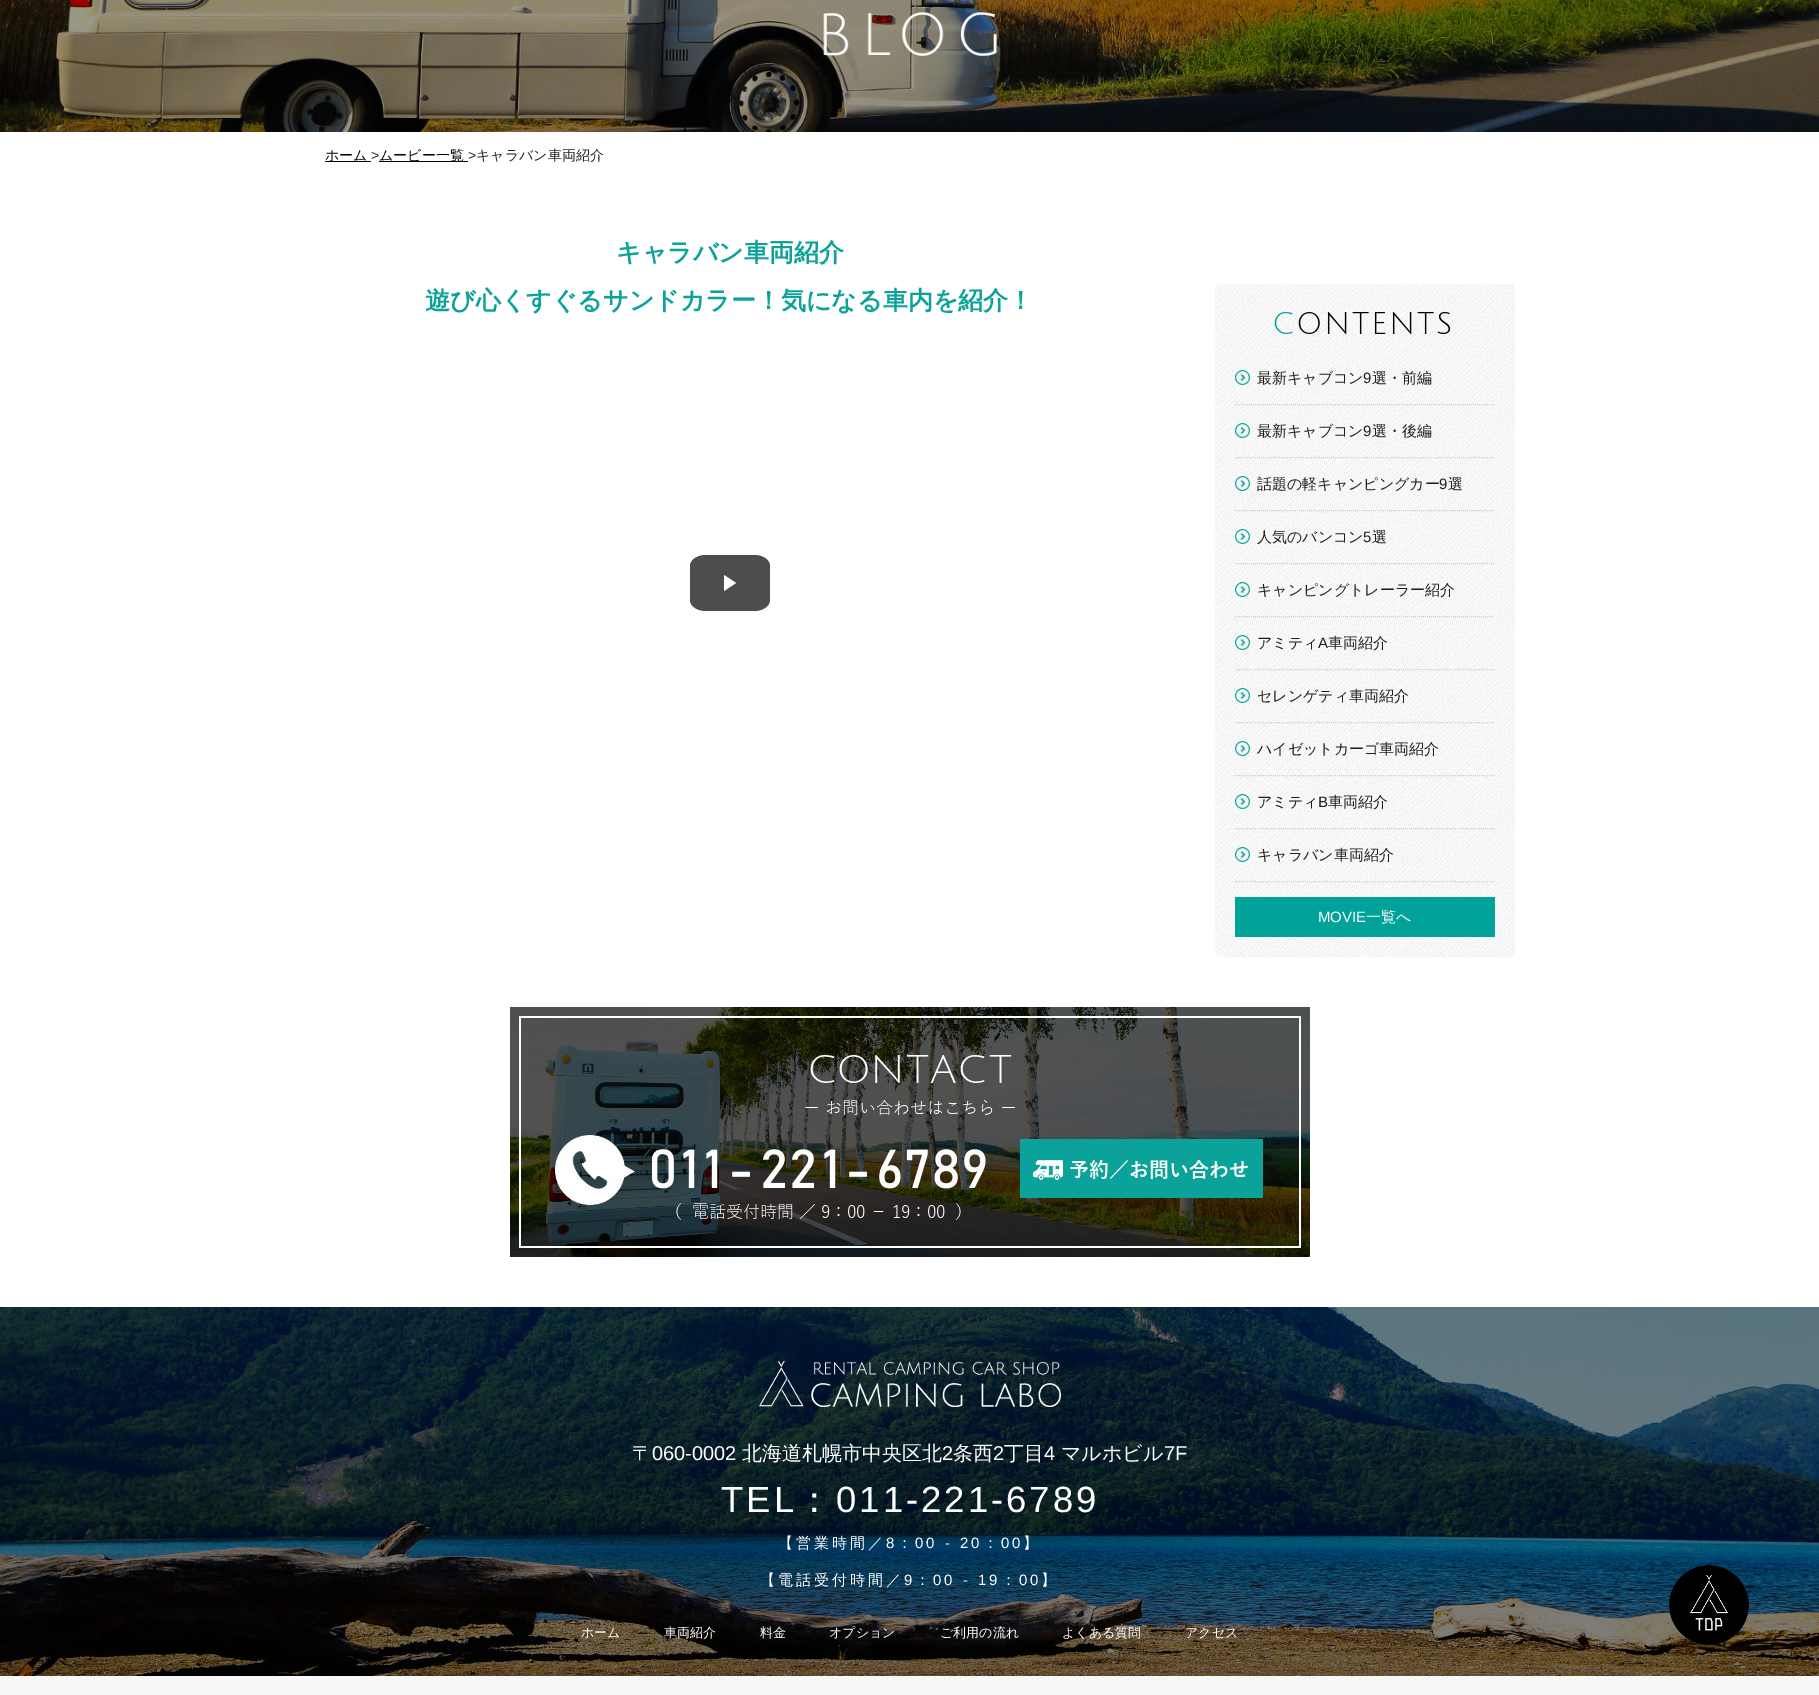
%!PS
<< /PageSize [1819 1695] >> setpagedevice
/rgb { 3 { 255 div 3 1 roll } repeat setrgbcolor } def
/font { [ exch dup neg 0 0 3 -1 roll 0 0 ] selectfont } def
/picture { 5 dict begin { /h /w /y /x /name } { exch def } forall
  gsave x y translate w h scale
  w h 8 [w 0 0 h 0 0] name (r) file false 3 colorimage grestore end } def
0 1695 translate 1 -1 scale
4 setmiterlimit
255 255 255 rgb
0 0 1819 1695 rectfill
(img/1.rgb) 0 0 1819 132 picture
0 0 0 rgb
325 161 46 1 rectfill
379 161 89 1 rectfill
77 77 77 rgb
706 555 moveto 754 555 lineto 763 555 770 560 770 566 curveto 770 600 lineto 770 606 763 611 754 611 curveto 706 611 lineto 697 611 690 606 690 600 curveto 690 566 lineto 690 560 697 555 706 555 curveto closepath fill
255 255 255 rgb
724 591 moveto 724 575 lineto 736 583 lineto closepath fill
(img/2.rgb) 1215 284 300 673 picture
(img/3.rgb) 1274 312 177 22 picture
204 204 204 rgb
[1 1] 0 setdash
1235 404.5 moveto 1495 404.5 lineto stroke
(img/4.rgb) 1235 370 15 15 picture
1235 457.5 moveto 1495 457.5 lineto stroke
(img/5.rgb) 1235 423 15 15 picture
1235 510.5 moveto 1495 510.5 lineto stroke
(img/6.rgb) 1235 476 15 15 picture
1235 563.5 moveto 1495 563.5 lineto stroke
(img/7.rgb) 1235 529 15 15 picture
1235 616.5 moveto 1495 616.5 lineto stroke
(img/8.rgb) 1235 582 15 15 picture
1235 669.5 moveto 1495 669.5 lineto stroke
(img/9.rgb) 1235 635 15 15 picture
1235 722.5 moveto 1495 722.5 lineto stroke
(img/10.rgb) 1235 688 15 15 picture
1235 775.5 moveto 1495 775.5 lineto stroke
(img/11.rgb) 1235 741 15 15 picture
1235 828.5 moveto 1495 828.5 lineto stroke
(img/12.rgb) 1235 794 15 15 picture
1235 881.5 moveto 1495 881.5 lineto stroke
(img/13.rgb) 1235 847 15 15 picture
0 162 154 rgb
1235 897 260 40 rectfill
(img/14.rgb) 510 1007 800 250 picture
(img/15.rgb) 1020 1139 243 59 picture
(img/16.rgb) 0 1307 1819 369 picture
(img/17.rgb) 759 1361 302 46 picture
(img/18.rgb) 1669 1565 80 80 picture
247 247 247 rgb
0 1676 1819 19 rectfill
/WenQuanYiZenHei-Medium 14 font
0 0 0 rgb
325 160 moveto (ホーム) show
/LiberationSans-Regular 14 font
37 37 37 rgb
371 160 moveto (>) show
/WenQuanYiZenHei-Medium 14 font
0 0 0 rgb
379 160 moveto (ムービー一覧) show
/LiberationSans-Regular 14 font
37 37 37 rgb
468 160 moveto (>) show
/WenQuanYiZenHei-Medium 14 font
476 160 moveto (キャラバン車両紹介) show
/WenQuanYiZenHei-Bold 25 font
11 162 154 rgb
616 261 moveto (キャラバン車両紹介) show
425 309 moveto (遊び心くすぐるサンドカラー！気になる車内を紹介！) show
/WenQuanYiZenHei-Medium 15 font
29 29 29 rgb
1257 383 moveto (最新キャブコン) show
/LiberationSans-Regular 15 font
1363 383 moveto (9) show
/WenQuanYiZenHei-Medium 15 font
1372 383 moveto (選・前編) show
1257 436 moveto (最新キャブコン) show
/LiberationSans-Regular 15 font
1363 436 moveto (9) show
/WenQuanYiZenHei-Medium 15 font
1372 436 moveto (選・後編) show
1257 489 moveto (話題の軽キャンピングカー) show
/LiberationSans-Regular 15 font
1439 489 moveto (9) show
/WenQuanYiZenHei-Medium 15 font
1448 489 moveto (選) show
1257 542 moveto (人気のバンコン) show
/LiberationSans-Regular 15 font
1363 542 moveto (5) show
/WenQuanYiZenHei-Medium 15 font
[
  [(選) 1372 542]
  [(キャンピングトレーラー紹介) 1257 595]
  [(アミティ) 1257 648]
] { aload pop moveto show } forall
/LiberationSans-Regular 15 font
1318 648 moveto (A) show
/WenQuanYiZenHei-Medium 15 font
[
  [(車両紹介) 1328 648]
  [(セレンゲティ車両紹介) 1257 701]
  [(ハイゼットカーゴ車両紹介) 1257 754]
  [(アミティ) 1257 807]
] { aload pop moveto show } forall
/LiberationSans-Regular 15 font
1318 807 moveto (B) show
/WenQuanYiZenHei-Medium 15 font
1328 807 moveto (車両紹介) show
1257 860 moveto (キャラバン車両紹介) show
/LiberationSans-Regular 15 font
255 255 255 rgb
1318 922 moveto (MOVIE) show
/WenQuanYiZenHei-Medium 15 font
1366 922 moveto (一覧へ) show
/WenQuanYiZenHei-Medium 20 font
632 1460 moveto (〒) show
/LiberationSans-Regular 20 font
652 1460 moveto (060-0002) show
/WenQuanYiZenHei-Medium 20 font
742 1460 moveto (北海道札幌市中央区北) show
/LiberationSans-Regular 20 font
942 1460 moveto (2) show
/WenQuanYiZenHei-Medium 20 font
953 1460 moveto (条西) show
/LiberationSans-Regular 20 font
993 1460 moveto (2) show
/WenQuanYiZenHei-Medium 20 font
1004 1460 moveto (丁目) show
/LiberationSans-Regular 20 font
1044 1460 moveto (4) show
/WenQuanYiZenHei-Medium 20 font
1061 1460 moveto (マルホビル) show
/LiberationSans-Regular 20 font
1164 1460 moveto (7F) show
/LiberationSans-Regular 36.5 font
721 1512 moveto 3 0 (TEL) ashow
/WenQuanYiZenHei-Medium 36.5 font
796 1512 moveto 3 0 (：) ashow
/LiberationSans-Regular 36.5 font
836 1512 moveto 3 0 (011-221-6789) ashow
/WenQuanYiZenHei-Medium 15 font
778 1548 moveto 3 0 (【営業時間／) ashow
/LiberationSans-Regular 15 font
886 1548 moveto 3 0 (8) ashow
/WenQuanYiZenHei-Medium 15 font
897 1548 moveto 3 0 (：) ashow
/LiberationSans-Regular 15 font
915 1548 moveto 3 0 (00 - 20) ashow
/WenQuanYiZenHei-Medium 15 font
983 1548 moveto 3 0 (：) ashow
/LiberationSans-Regular 15 font
1001 1548 moveto 3 0 (00) ashow
/WenQuanYiZenHei-Medium 15 font
1023 1548 moveto 3 0 (】) ashow
760 1585 moveto 3 0 (【電話受付時間／) ashow
/LiberationSans-Regular 15 font
904 1585 moveto 3 0 (9) ashow
/WenQuanYiZenHei-Medium 15 font
915 1585 moveto 3 0 (：) ashow
/LiberationSans-Regular 15 font
933 1585 moveto 3 0 (00 - 19) ashow
/WenQuanYiZenHei-Medium 15 font
1001 1585 moveto 3 0 (：) ashow
/LiberationSans-Regular 15 font
1019 1585 moveto 3 0 (00) ashow
/WenQuanYiZenHei-Medium 15 font
1041 1585 moveto 3 0 (】) ashow
/WenQuanYiZenHei-Medium 13 font
[
  [(ホーム) 581 1637]
  [(車両紹介) 664 1637]
  [(料金) 760 1637]
  [(オプション) 829 1637]
  [(ご利用の流れ) 940 1637]
  [(よくある質問) 1062 1637]
  [(アクセス) 1185 1637]
] { aload pop moveto show } forall
showpage
